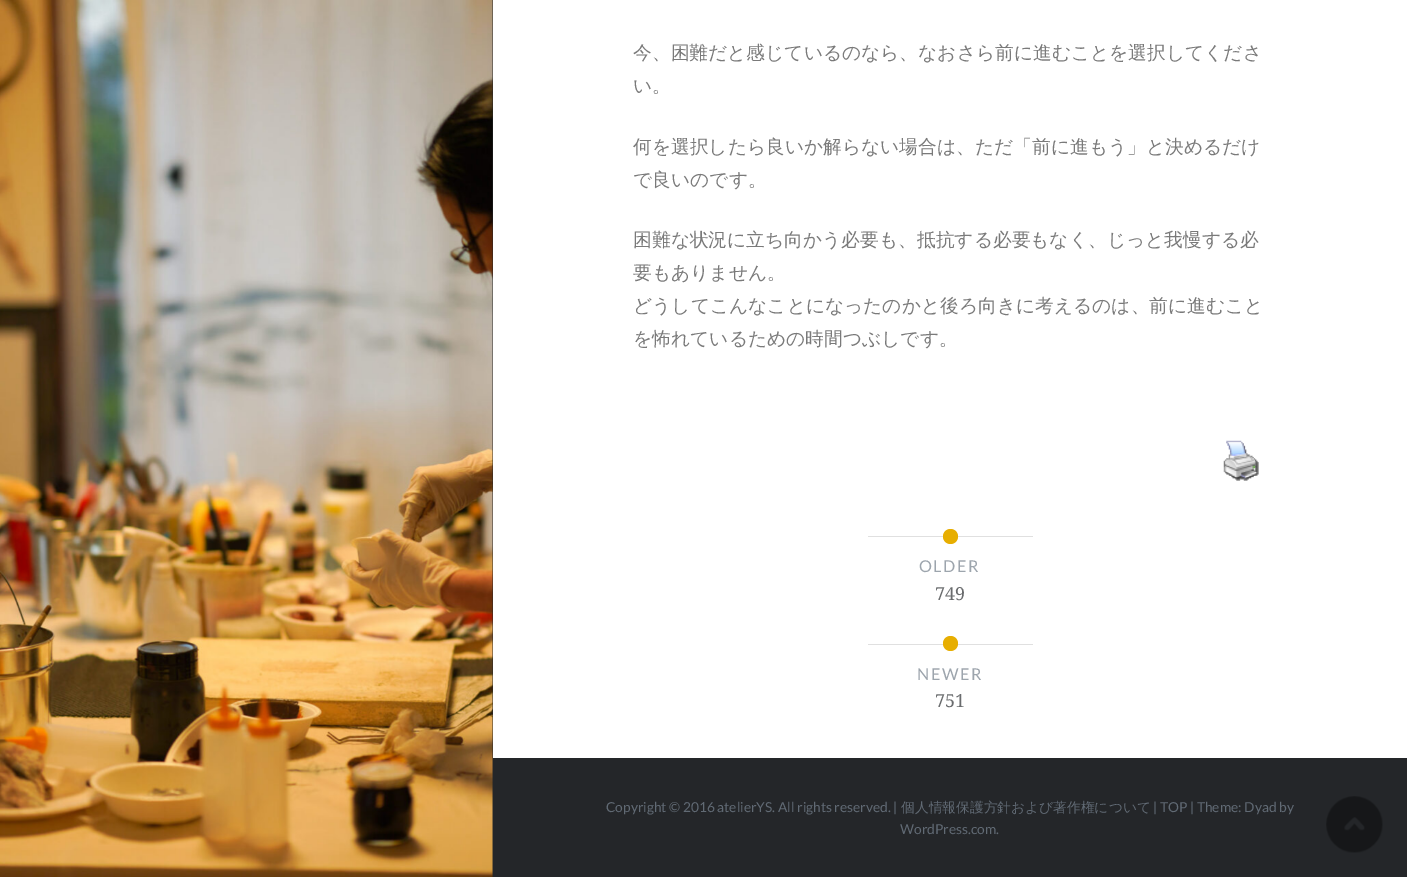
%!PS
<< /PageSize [1407 877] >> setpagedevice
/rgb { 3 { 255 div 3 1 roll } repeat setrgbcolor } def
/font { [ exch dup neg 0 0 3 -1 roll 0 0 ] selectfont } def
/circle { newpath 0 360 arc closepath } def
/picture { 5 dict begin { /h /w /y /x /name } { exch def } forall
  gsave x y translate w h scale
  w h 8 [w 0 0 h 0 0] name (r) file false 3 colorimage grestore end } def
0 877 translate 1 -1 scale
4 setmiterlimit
36 38 41 rgb
0 0 1407 877 rectfill
255 255 255 rgb
493 0 914 758 rectfill
(img/1.rgb) 0 0 493 877 picture
(img/2.rgb) 1223 440 36 41 picture
224 224 224 rgb
868 536 165 1 rectfill
231 174 1 rgb
950.5 536.5 7.5 circle fill
224 224 224 rgb
868 644 165 1 rectfill
231 174 1 rgb
950.5 643.5 7.5 circle fill
(img/3.rgb) 1326 796 57 57 picture
/WenQuanYiZenHei-Medium 18.75 font
122 122 122 rgb
[
  [(今、困難だと感じているのなら、なおさら前に進むことを選択してくださ) 633 59]
  [(い。) 633 92]
  [(何を選択したら良いか解らない場合は、ただ「前に進もう」と決めるだけ) 633 153]
  [(で良いのです。) 633 186]
  [(困難な状況に立ち向かう必要も、抵抗する必要もなく、じっと我慢する必) 633 246]
  [(要もありません。) 633 279]
  [(どうしてこんなことになったのかと後ろ向きに考えるのは、前に進むこと) 633 312]
  [(を怖れているための時間つぶしです。) 633 345]
] { aload pop moveto show } forall
/Lato-Regular 16.25 font
157 165 173 rgb
919 572 moveto 1.5 0 (OLDER) ashow
/NotoSerif-Regular 18 font
106 108 110 rgb
935 600 moveto (749) show
/Lato-Regular 16.25 font
157 165 173 rgb
917 680 moveto 1.5 0 (NEWER) ashow
/NotoSerif-Regular 18 font
106 108 110 rgb
935 707 moveto (751) show
/Lato-Regular 13.75 font
97 106 116 rgb
606 812 moveto (Copyright © 2016 atelierYS. All rights reserved. |) show
/WenQuanYiZenHei-Medium 13.75 font
901 812 moveto (個人情報保護方針および著作権について) show
/Lato-Regular 13.75 font
1153 812 moveto (| TOP | Theme: Dyad by) show
900 834 moveto (WordPress.com.) show
showpage
